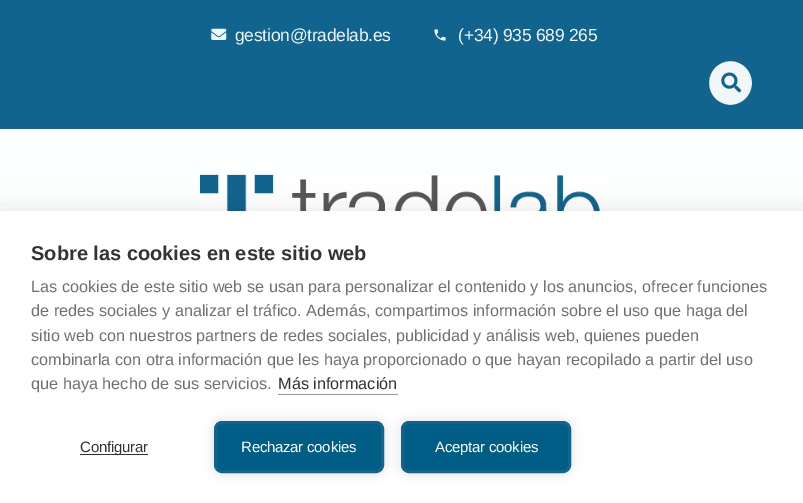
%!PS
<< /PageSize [803 503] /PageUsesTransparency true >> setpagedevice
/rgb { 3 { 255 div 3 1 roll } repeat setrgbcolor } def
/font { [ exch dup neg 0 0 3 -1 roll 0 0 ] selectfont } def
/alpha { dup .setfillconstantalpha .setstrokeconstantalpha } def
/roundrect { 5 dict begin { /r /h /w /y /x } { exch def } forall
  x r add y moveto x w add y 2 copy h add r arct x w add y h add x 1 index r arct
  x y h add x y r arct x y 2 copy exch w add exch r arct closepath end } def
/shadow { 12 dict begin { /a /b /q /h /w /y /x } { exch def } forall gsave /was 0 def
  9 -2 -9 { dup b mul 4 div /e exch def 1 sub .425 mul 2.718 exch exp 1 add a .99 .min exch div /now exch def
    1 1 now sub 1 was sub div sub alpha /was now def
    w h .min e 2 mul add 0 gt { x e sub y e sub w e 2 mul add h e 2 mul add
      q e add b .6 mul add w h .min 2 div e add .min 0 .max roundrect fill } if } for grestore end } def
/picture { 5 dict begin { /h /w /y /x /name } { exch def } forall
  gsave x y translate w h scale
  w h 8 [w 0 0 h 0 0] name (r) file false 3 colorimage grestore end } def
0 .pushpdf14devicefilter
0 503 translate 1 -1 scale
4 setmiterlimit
17 100 142 rgb
0 0 803 503 rectfill
(img/1.rgb) 211 28 16 12 picture
(img/2.rgb) 434 29 12 12 picture
241 247 249 rgb
707.5 59.5 46 47 23 roundrect gsave fill grestore
17 100 142 rgb
3 setlinewidth
stroke
(img/3.rgb) 721 72 21 21 picture
253 254 254 rgb
0 129 803 82 rectfill
(img/4.rgb) 200 174 401 37 picture
0 0 0 rgb
0 211 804 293 0 12.5 0.1 shadow
[
  [0 211 803 292 255 255 255]
  [278 394 120 1 153 153 153]
  [80 454 68 1 51 51 51]
] { aload pop rgb rectfill } forall
0 0 0 rgb
214 421 170 52 8 6 0.12 shadow
0 93 133 rgb
215.5 422.5 167 49 6.5 roundrect gsave fill grestore
17 100 142 rgb
stroke
0 0 0 rgb
401 421 170 52 8 6 0.12 shadow
0 93 133 rgb
402.5 422.5 167 49 6.5 roundrect gsave fill grestore
17 100 142 rgb
stroke
/LiberationSans-Regular 17.5 font
241 247 249 rgb
235 41 moveto -0.25 0 (gestion@tradelab.es) ashow
458 41 moveto -0.25 0 (\(+34\) 935 689 265) ashow
/LiberationSans-Bold 20 font
51 51 51 rgb
31 260 moveto (Sobre las cookies en este sitio web) show
/LiberationSans-Regular 16.25 font
112 112 112 rgb
[
  [(Las cookies de este sitio web se usan para personalizar el contenido y los anuncios, ofrecer funciones) 31 292]
  [(de redes sociales y analizar el tráfico. Además, compartimos información sobre el uso que haga del) 31 316]
  [(sitio web con nuestros partners de redes sociales, publicidad y análisis web, quienes pueden) 31 341]
  [(combinarla con otra información que les haya proporcionado o que hayan recopilado a partir del uso) 31 365]
  [(que haya hecho de sus servicios.) 31 389]
] { aload pop moveto show } forall
51 51 51 rgb
278 389 moveto (Más información) show
/LiberationSans-Regular 15 font
80 452 moveto -0.25 0 (Configurar) ashow
255 255 255 rgb
241 452 moveto -0.25 0 (Rechazar cookies) ashow
435 452 moveto -0.25 0 (Aceptar cookies) ashow
.poppdf14devicefilter showpage
